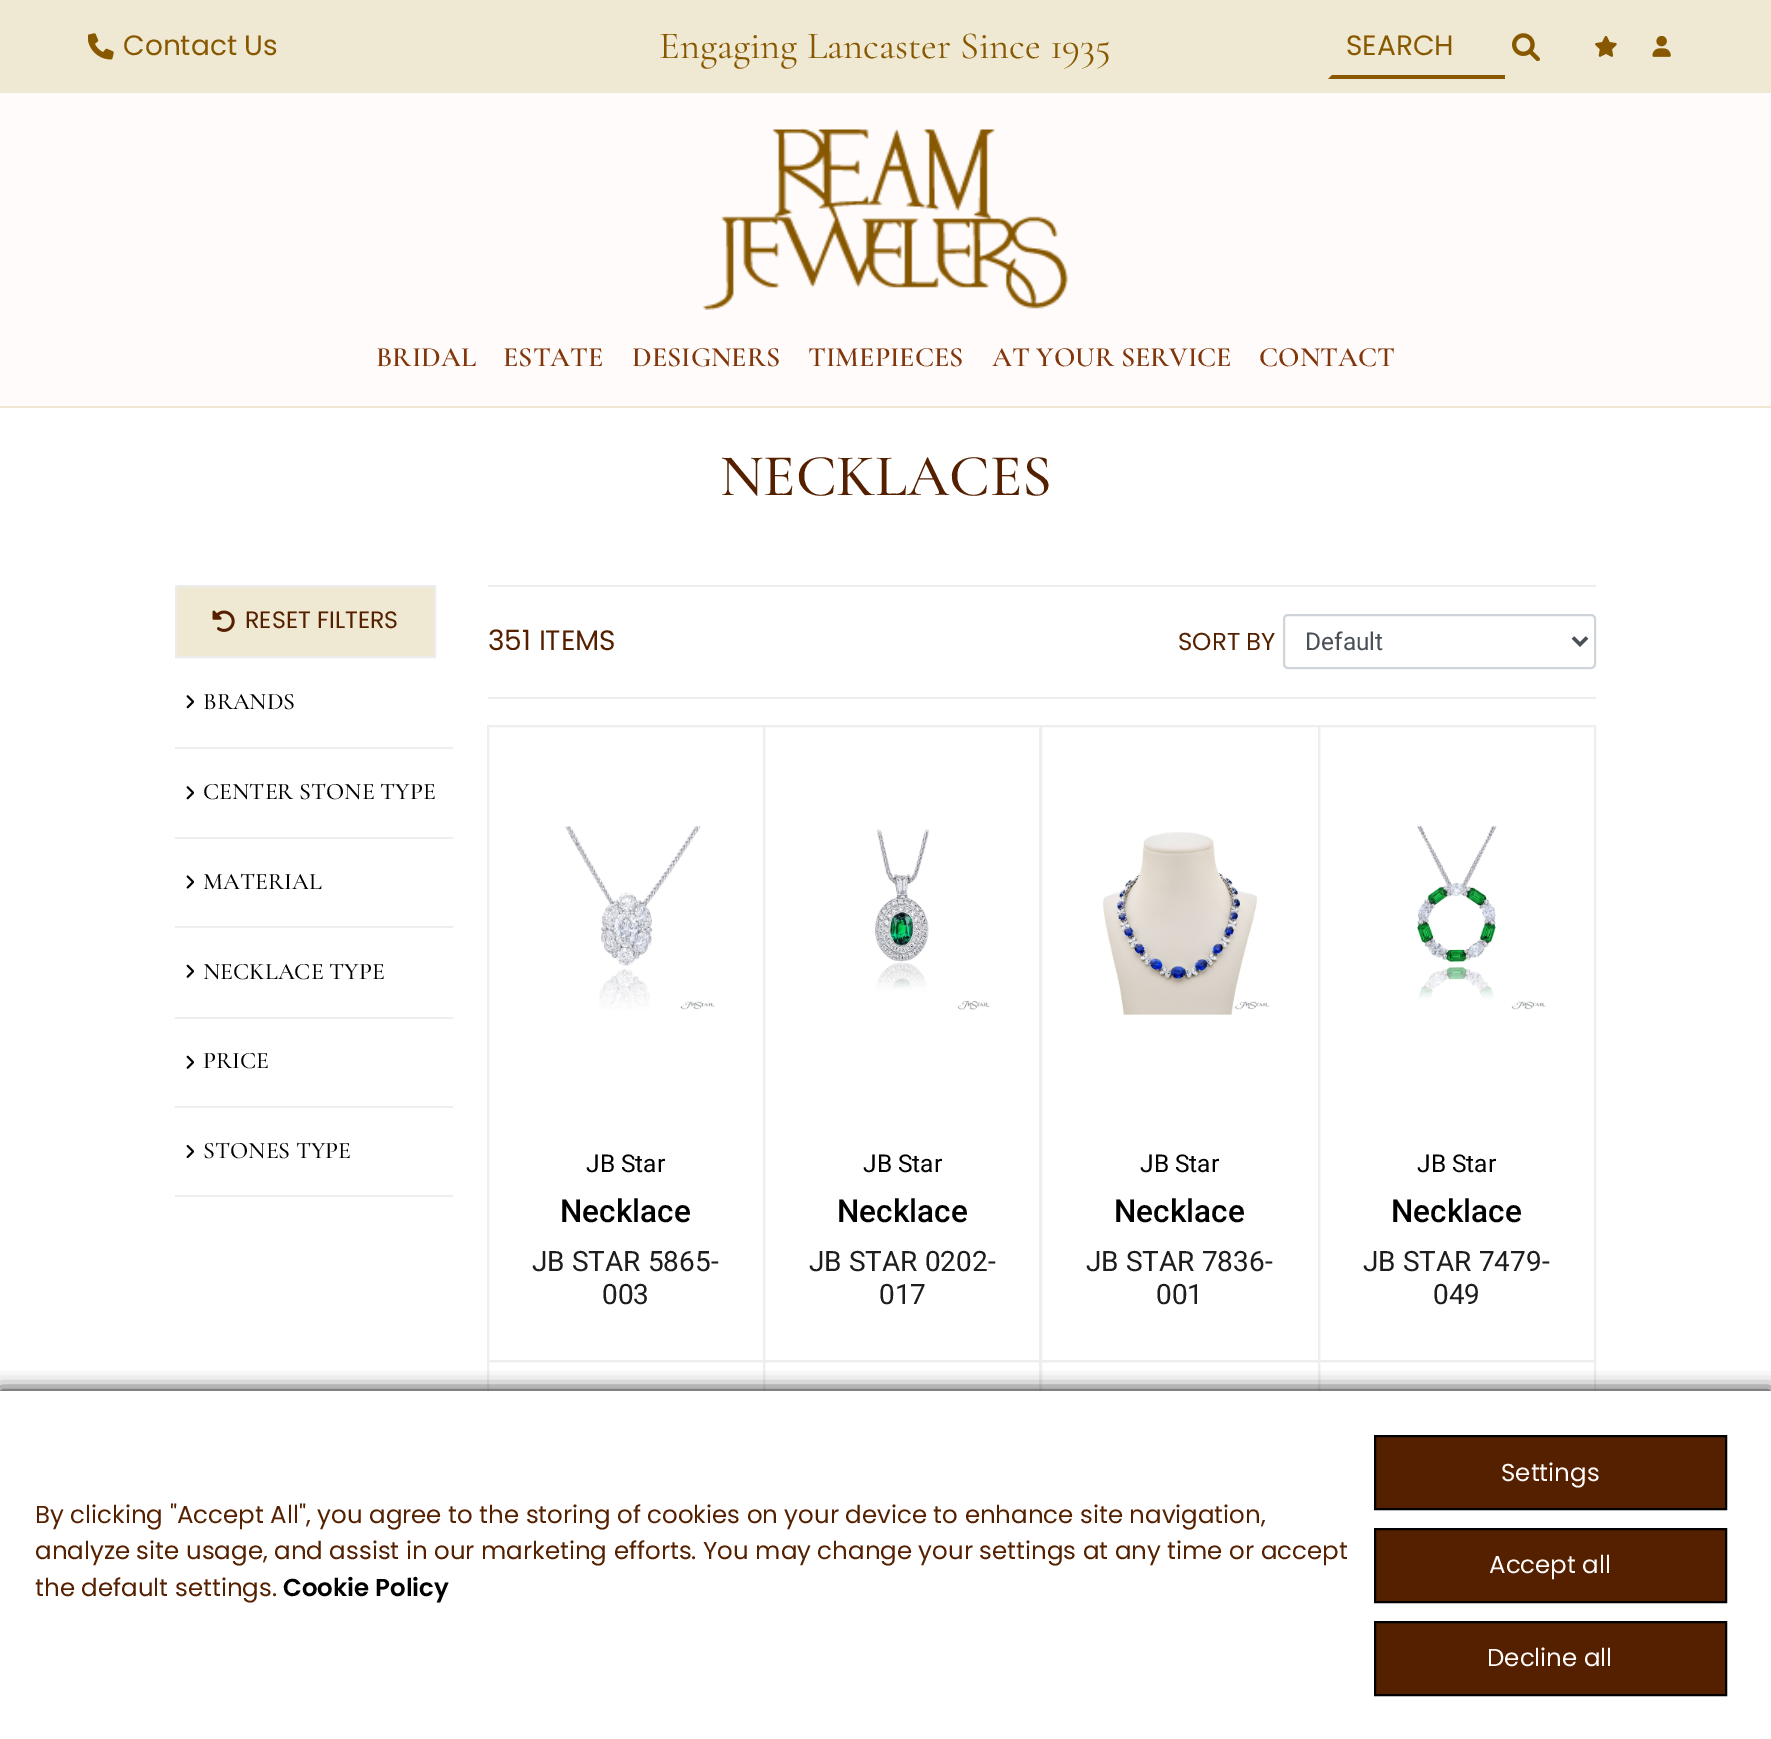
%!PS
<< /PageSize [1771 1739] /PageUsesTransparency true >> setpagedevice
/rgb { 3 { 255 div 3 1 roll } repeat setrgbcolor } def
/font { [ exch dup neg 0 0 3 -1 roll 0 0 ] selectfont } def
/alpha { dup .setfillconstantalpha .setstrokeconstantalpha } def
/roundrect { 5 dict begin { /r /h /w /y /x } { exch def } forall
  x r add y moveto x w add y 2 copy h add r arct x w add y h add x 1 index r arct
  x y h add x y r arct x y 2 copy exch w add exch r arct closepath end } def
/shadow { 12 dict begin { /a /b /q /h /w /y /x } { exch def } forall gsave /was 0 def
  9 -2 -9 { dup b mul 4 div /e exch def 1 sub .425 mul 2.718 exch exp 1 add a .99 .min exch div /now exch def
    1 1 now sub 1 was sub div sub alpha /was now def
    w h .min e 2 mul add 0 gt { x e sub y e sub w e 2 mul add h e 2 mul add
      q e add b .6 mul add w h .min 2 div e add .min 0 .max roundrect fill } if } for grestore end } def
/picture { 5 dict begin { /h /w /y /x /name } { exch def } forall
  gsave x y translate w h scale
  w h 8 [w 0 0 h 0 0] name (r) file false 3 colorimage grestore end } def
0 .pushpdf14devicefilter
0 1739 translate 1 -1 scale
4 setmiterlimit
255 255 255 rgb
0 0 1771 1739 rectfill
239 232 210 rgb
0 0 1771 93 rectfill
(img/1.rgb) 88 33 26 27 picture
136 88 0 rgb
1505 79 moveto 1328 79 lineto 1332 75 lineto 1505 75 lineto closepath fill
(img/2.rgb) 1512 33 28 28 picture
(img/3.rgb) 1595 36 22 21 picture
(img/4.rgb) 1652 36 19 21 picture
255 251 250 rgb
0 93 1771 313 rectfill
(img/5.rgb) 703 127 365 183 picture
239 230 210 rgb
0 406 1771 2 rectfill
239 232 210 rgb
176 586 moveto 435 586 lineto 435 657 lineto 176 657 lineto closepath gsave fill grestore
236 236 236 rgb
2 setlinewidth
stroke
(img/6.rgb) 212 610 23 22 picture
(img/7.rgb) 186 695 8 14 picture
238 238 238 rgb
175 747 278 2 rectfill
(img/7.rgb) 186 786 8 14 picture
175 837 278 2 rectfill
(img/8.rgb) 186 875 8 14 picture
175 926 278 2 rectfill
(img/9.rgb) 186 964 8 14 picture
175 1017 278 2 rectfill
(img/9.rgb) 186 1055 8 14 picture
175 1106 278 2 rectfill
(img/10.rgb) 186 1144 8 14 picture
175 1195 278 2 rectfill
488 585 1108 2 rectfill
206 212 218 rgb
1284 615 311 53 4 roundrect stroke
73 80 87 rgb
3.5 setlinewidth
1573 637.5 moveto 1580 644.5 lineto 1587 637.5 lineto stroke
238 238 238 rgb
488 697 1108 2 rectfill
2 setlinewidth
488 726 276 635 rectstroke
(img/11.rgb) 565 826 150 184 picture
764 726 276 635 rectstroke
(img/12.rgb) 875 829 115 181 picture
1041 726 278 635 rectstroke
(img/13.rgb) 1103 832 167 183 picture
1319 726 276 635 rectstroke
(img/14.rgb) 1417 826 129 184 picture
488 1361 276 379 rectstroke
764 1361 276 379 rectstroke
1041 1361 278 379 rectstroke
1319 1361 276 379 rectstroke
0 0 0 rgb
0 1391 1771 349 0 9 1 shadow
255 255 255 rgb
0 1391 1771 348 rectfill
85 32 0 rgb
1375 1436 moveto 1726 1436 lineto 1726 1509 lineto 1375 1509 lineto closepath gsave fill grestore
0 0 0 rgb
stroke
85 32 0 rgb
1375 1529 moveto 1726 1529 lineto 1726 1602 lineto 1375 1602 lineto closepath gsave fill grestore
0 0 0 rgb
stroke
85 32 0 rgb
1375 1622 moveto 1726 1622 lineto 1726 1695 lineto 1375 1695 lineto closepath gsave fill grestore
0 0 0 rgb
stroke
/Poppins-Regular 28 font
136 88 0 rgb
123 55 moveto (Contact Us) show
/CormorantGaramond-Regular 38.5 font
659 58 moveto (Engaging Lancaster Since 1935) show
/Poppins-Regular 28 font
1346 55 moveto (SEARCH) show
/CormorantGaramond-SemiBold 28 font
129 55 11 rgb
[
  [(BRIDAL) 376 366]
  [(ESTATE) 503 366]
  [(DESIGNERS) 632 366]
  [(TIMEPIECES) 808 366]
  [(AT YOUR SERVICE) 992 366]
  [(CONTACT) 1259 366]
] { aload pop moveto show } forall
/CormorantGaramond-Medium 59.5 font
85 32 0 rgb
720 495 moveto (NECKLACES) show
/Poppins-Regular 23.75 font
245 628 moveto (RESET FILTERS) show
/CormorantGaramond-Medium 23.75 font
0 0 0 rgb
[
  [(BRANDS) 203 709]
  [(CENTER STONE TYPE) 203 799]
  [(MATERIAL) 203 889]
  [(NECKLACE TYPE) 203 979]
  [(PRICE) 203 1068]
  [(STONES TYPE) 203 1158]
] { aload pop moveto show } forall
/Poppins-Regular 28 font
85 32 0 rgb
488 650 moveto (351 ITEMS) show
/Poppins-Regular 24.5 font
1178 650 moveto (SORT BY) show
/Roboto-Regular 24.5 font
73 80 87 rgb
1305 650 moveto (Default) show
0 0 0 rgb
586 1172 moveto (JB Star) show
/Roboto-Medium 31.5 font
560 1222 moveto (Necklace) show
/Roboto-Regular 28 font
29 29 29 rgb
532 1271 moveto (JB STAR 5865-) show
602 1304 moveto (003) show
/Roboto-Regular 24.5 font
0 0 0 rgb
863 1172 moveto (JB Star) show
/Roboto-Medium 31.5 font
837 1222 moveto (Necklace) show
/Roboto-Regular 28 font
29 29 29 rgb
809 1271 moveto (JB STAR 0202-) show
879 1304 moveto (017) show
/Roboto-Regular 24.5 font
0 0 0 rgb
1140 1172 moveto (JB Star) show
/Roboto-Medium 31.5 font
1114 1222 moveto (Necklace) show
/Roboto-Regular 28 font
29 29 29 rgb
1086 1271 moveto (JB STAR 7836-) show
1156 1304 moveto (001) show
/Roboto-Regular 24.5 font
0 0 0 rgb
1417 1172 moveto (JB Star) show
/Roboto-Medium 31.5 font
1391 1222 moveto (Necklace) show
/Roboto-Regular 28 font
29 29 29 rgb
1363 1271 moveto (JB STAR 7479-) show
1433 1304 moveto (049) show
/Poppins-Regular 24.5 font
85 32 0 rgb
[
  [(By clicking "Accept All", you agree to the storing of cookies on your device to enhance site navigation,) 35 1523]
  [(analyze site usage, and assist in our marketing efforts. You may change your settings at any time or accept) 35 1559]
  [(the default settings.) 35 1596]
] { aload pop moveto show } forall
/Poppins-SemiBold 24.5 font
0 0 0 rgb
283 1596 moveto (Cookie Policy) show
/Poppins-Regular 24.5 font
255 251 250 rgb
[
  [(Settings) 1501 1481]
  [(Accept all) 1489 1573]
  [(Decline all) 1487 1666]
] { aload pop moveto show } forall
.poppdf14devicefilter showpage
